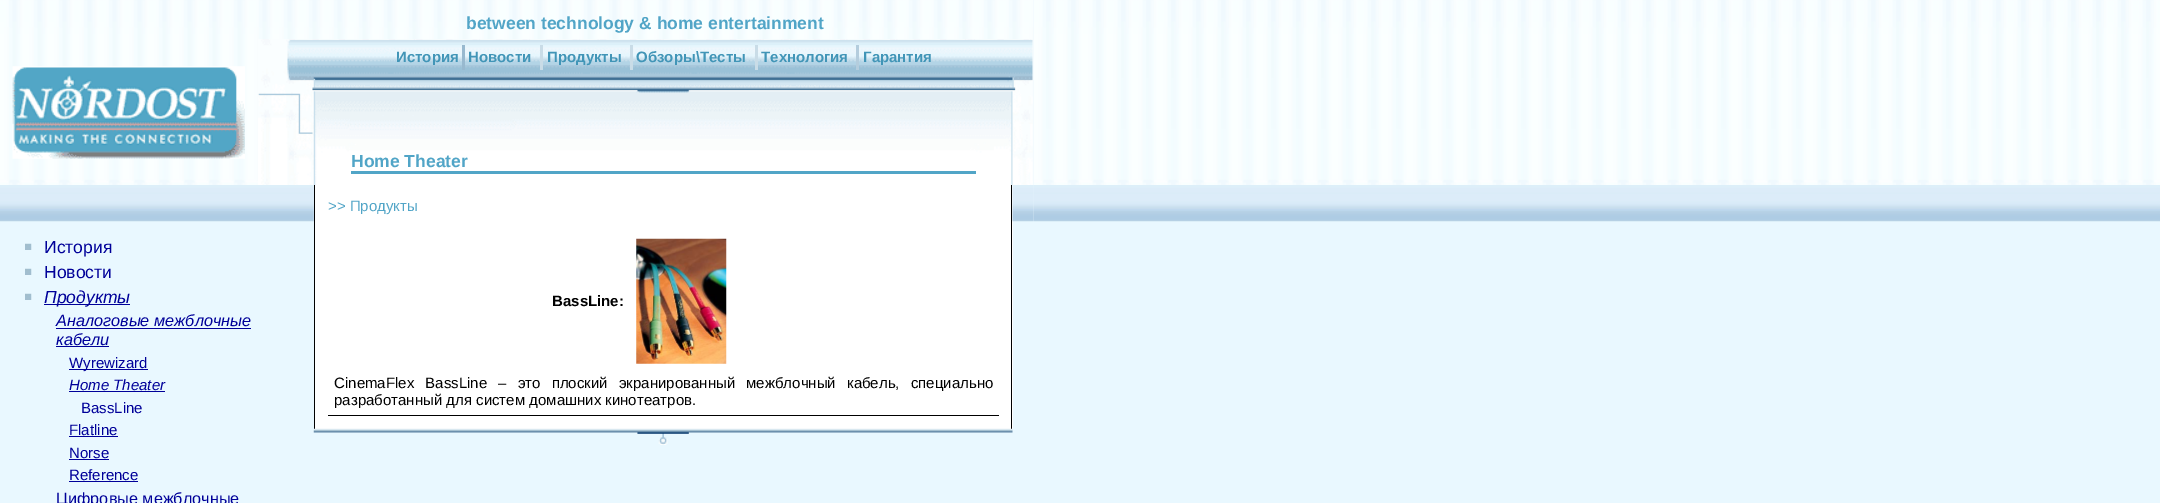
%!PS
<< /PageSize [2160 503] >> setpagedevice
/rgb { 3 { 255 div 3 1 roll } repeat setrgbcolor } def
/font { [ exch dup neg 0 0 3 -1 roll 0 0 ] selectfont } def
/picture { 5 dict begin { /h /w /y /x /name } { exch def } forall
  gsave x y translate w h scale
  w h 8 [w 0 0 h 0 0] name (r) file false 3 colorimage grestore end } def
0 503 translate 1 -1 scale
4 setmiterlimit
233 248 255 rgb
0 0 2160 503 rectfill
(img/1.rgb) 0 0 1034 185 picture
(img/2.rgb) 12 66 233 93 picture
(img/3.rgb) 258 39 775 146 picture
[
  [462 45 3 25 152 185 207]
  [540 45 3 25 201 220 231]
  [630 45 3 25 201 220 231]
  [755 45 3 25 201 220 231]
  [856 45 3 25 180 205 221]
  [351 171 625 3 81 165 199]
] { aload pop rgb rectfill } forall
(img/4.rgb) 1034 0 1126 185 picture
(img/5.rgb) 0 185 314 37 picture
(img/6.rgb) 25 243 7 7 picture
(img/6.rgb) 25 268 7 7 picture
(img/7.rgb) 25 293 7 7 picture
[
  [44 304 86 1 0 0 153]
  [56 328 195 1 0 0 153]
  [56 346 53 1 0 0 153]
  [69 369 79 1 0 0 153]
  [69 391 96 1 0 0 153]
  [69 436 49 1 0 0 153]
  [69 459 40 1 0 0 153]
  [69 481 69 1 0 0 153]
  [315 185 698 244 255 255 255]
  [1011 185 1 244 0 0 0]
  [314 185 1 244 0 0 0]
] { aload pop rgb rectfill } forall
(img/8.rgb) 636 238 91 126 picture
328 415 671 1 rectfill
(img/9.rgb) 313 428 700 17 picture
(img/10.rgb) 1012 185 22 37 picture
(img/11.rgb) 1034 185 1126 37 picture
/LiberationSans-Bold 17.5 font
81 165 199 rgb
466 29 moveto (between technology & home entertainment) show
/LiberationSans-Bold 15 font
65 149 183 rgb
[
  [(История) 396 62]
  [(Новости) 468 62]
  [(Продукты) 547 62]
  [(Обзоры\\Тесты) 636 62]
  [(Технология) 761 62]
  [(Гарантия) 863 62]
] { aload pop moveto show } forall
/LiberationSans-Bold 17.5 font
81 165 199 rgb
351 167 moveto (Home Theater) show
/LiberationSans-Regular 17.5 font
0 0 153 rgb
44 253 moveto (История) show
44 278 moveto (Новости) show
/LiberationSans-Italic 17.5 font
44 303 moveto (Продукты) show
/LiberationSans-Italic 16.25 font
56 326 moveto (Аналоговые межблочные) show
56 345 moveto (кабели) show
/LiberationSans-Regular 15 font
69 368 moveto (Wyrewizard) show
/LiberationSans-Italic 15 font
69 390 moveto (Home Theater) show
/LiberationSans-Regular 15 font
[
  [(BassLine) 81 413]
  [(Flatline) 69 435]
  [(Norse) 69 458]
  [(Reference) 69 480]
] { aload pop moveto show } forall
/LiberationSans-Regular 16.25 font
56 504 moveto (Цифровые межблочные) show
/LiberationSans-Regular 15 font
81 165 199 rgb
328 211 moveto (>> Продукты) show
/LiberationSans-Bold 15 font
0 0 0 rgb
552 306 moveto (BassLine:) show
/LiberationSans-Regular 15 font
334 388 moveto 7 0 32 (CinemaFlex BassLine – это плоский экранированный межблочный кабель, специально) widthshow
334 405 moveto (разработанный для систем домашних кинотеатров.) show
showpage
